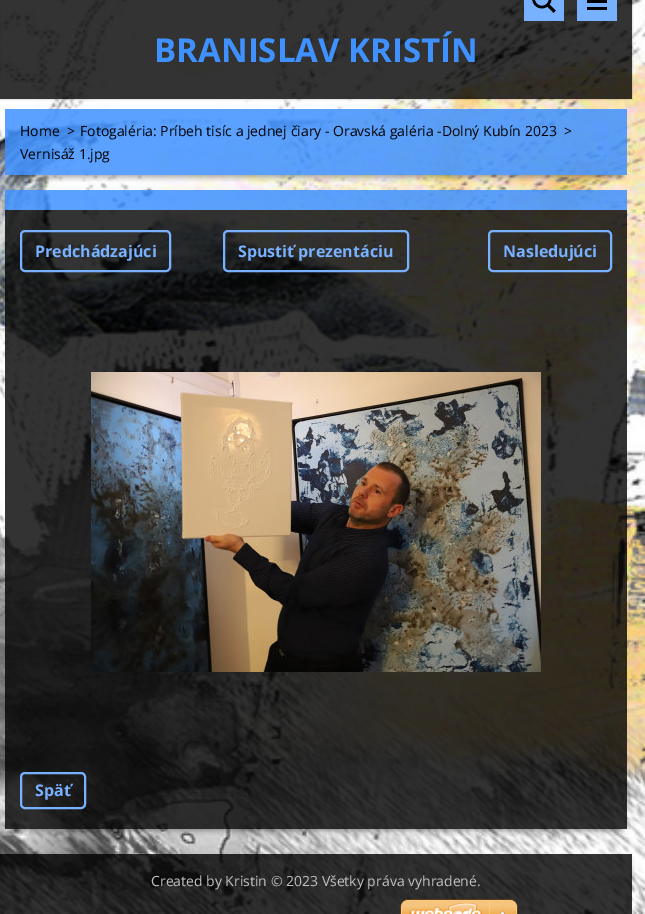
%!PS
<< /PageSize [645 914] /PageUsesTransparency true >> setpagedevice
/rgb { 3 { 255 div 3 1 roll } repeat setrgbcolor } def
/font { [ exch dup neg 0 0 3 -1 roll 0 0 ] selectfont } def
/alpha { dup .setfillconstantalpha .setstrokeconstantalpha } def
/roundrect { 5 dict begin { /r /h /w /y /x } { exch def } forall
  x r add y moveto x w add y 2 copy h add r arct x w add y h add x 1 index r arct
  x y h add x y r arct x y 2 copy exch w add exch r arct closepath end } def
/shadow { 12 dict begin { /a /b /q /h /w /y /x } { exch def } forall gsave /was 0 def
  9 -2 -9 { dup b mul 4 div /e exch def 1 sub .425 mul 2.718 exch exp 1 add a .99 .min exch div /now exch def
    1 1 now sub 1 was sub div sub alpha /was now def
    w h .min e 2 mul add 0 gt { x e sub y e sub w e 2 mul add h e 2 mul add
      q e add b .6 mul add w h .min 2 div e add .min 0 .max roundrect fill } if } for grestore end } def
/picture { 5 dict begin { /h /w /y /x /name } { exch def } forall
  gsave x y translate w h scale
  w h 8 [w 0 0 h 0 0] name (r) file false 3 colorimage grestore end } def
0 .pushpdf14devicefilter
0 914 translate 1 -1 scale
4 setmiterlimit
255 255 255 rgb
0 0 645 914 rectfill
(img/1.rgb) 0 0 645 914 picture
0.1 alpha
0 0 0 rgb
-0.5 -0.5 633 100 rectstroke
0.8 alpha
0 0 632 74 rectfill
1 alpha
119 177 255 rgb
524 0 40 21 rectfill
(img/2.rgb) 532 0 24 13 picture
[
  [577 0 40 21 119 177 255]
  [587 0 20 3 0 0 0]
  [587 7 20 3 0 0 0]
] { aload pop rgb rectfill } forall
0.8 alpha
[
  [0 74 632 25 0 0 0]
] { aload pop rgb rectfill } forall
gsave
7 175 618 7 rectclip
1 alpha
11 123 610 54 0 3 0.35 shadow
grestore
0.85 alpha
63 145 255 rgb
5 109 622 66 rectfill
gsave
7 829 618 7 rectclip
1 alpha
0 0 0 rgb
11 204 610 627 0 3 0.35 shadow
grestore
5 190 622 20 rectfill
0.8 alpha
0 0 0 rgb
5 210 622 562 rectfill
1 alpha
119 177 255 rgb
2 setlinewidth
21 231 149 40 4 roundrect stroke
224 231 184 40 4 roundrect stroke
489 231 122 40 4 roundrect stroke
(img/3.rgb) 91 372 450 300 picture
0.8 alpha
0 0 0 rgb
5 772 622 57 rectfill
1 alpha
119 177 255 rgb
21 773 64 35 4 roundrect stroke
0.8 alpha
0 0 0 rgb
0 854 632 48 rectfill
0 902 632 12 rectfill
1 alpha
(img/4.rgb) 400 899 118 15 picture
/OpenSans-Bold 33 font
63 145 255 rgb
154 62 moveto (BRANISLAV KRISTÍN) show
/OpenSans-Regular 14 font
0 0 0 rgb
[
  [(Home) 20 136]
  [(>) 67 136]
  [(Fotogaléria: Príbeh tisíc a jednej čiary - Oravská galéria -Dolný Kubín 2023) 80 136]
  [(>) 564 136]
  [(Vernisáž 1.jpg) 20 159]
] { aload pop moveto show } forall
/OpenSans-Bold 16 font
119 177 255 rgb
[
  [(Predchádzajúci) 35 257]
  [(Spustiť prezentáciu) 238 257]
  [(Nasledujúci) 503 257]
  [(Späť) 35 796]
] { aload pop moveto show } forall
/OpenSans-Regular 14 font
194 194 194 rgb
151 886 moveto (Created by Kristin © 2023 Všetky práva vyhradené.) show
.poppdf14devicefilter showpage
